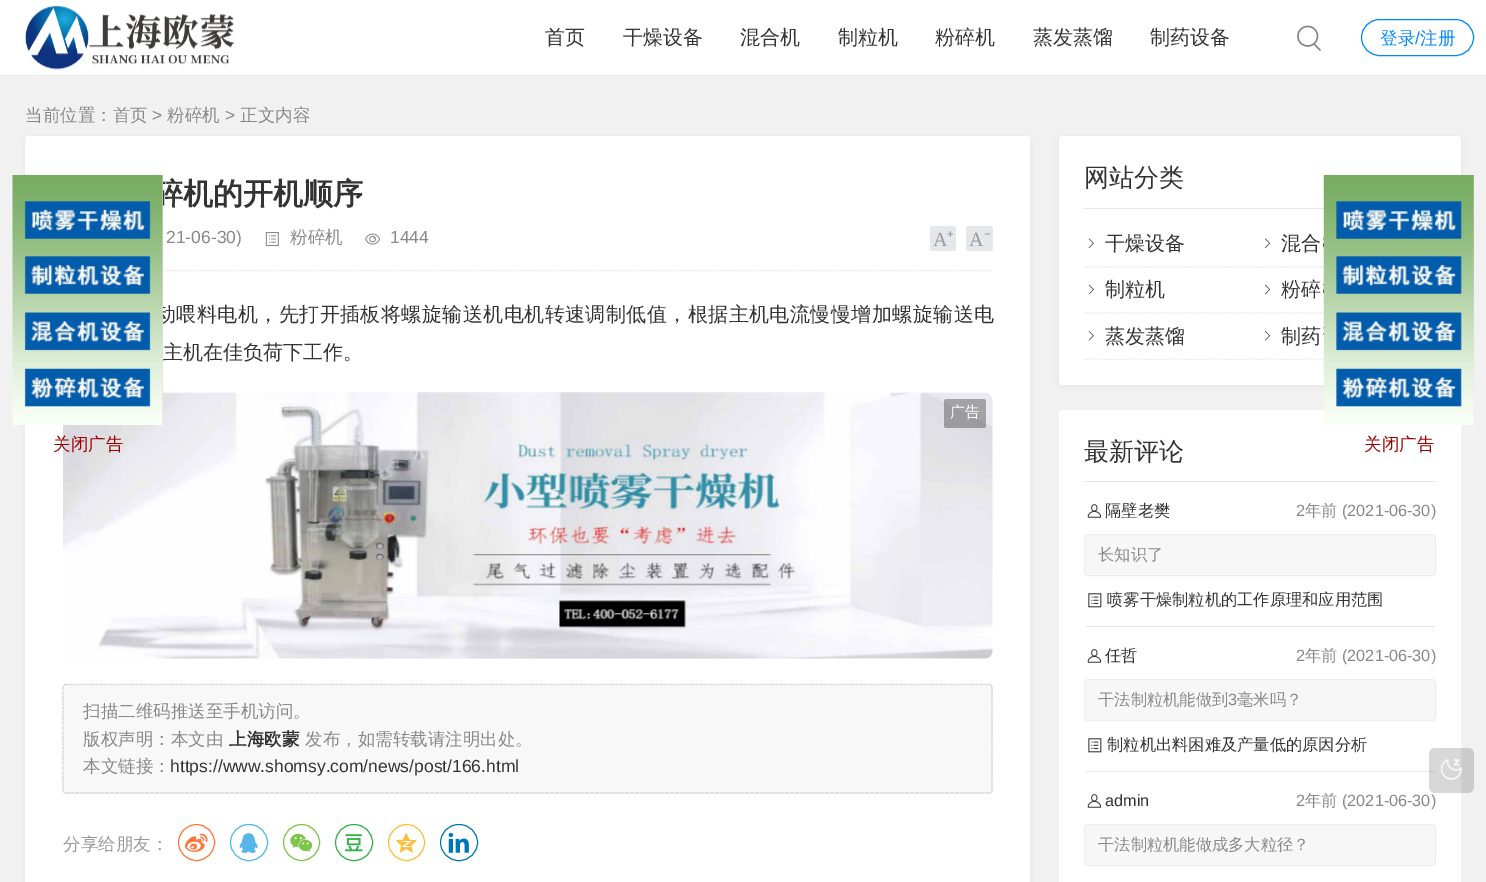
%!PS
<< /PageSize [1486 882] /PageUsesTransparency true >> setpagedevice
/rgb { 3 { 255 div 3 1 roll } repeat setrgbcolor } def
/font { [ exch dup neg 0 0 3 -1 roll 0 0 ] selectfont } def
/alpha { dup .setfillconstantalpha .setstrokeconstantalpha } def
/circle { newpath 0 360 arc closepath } def
/roundrect { 5 dict begin { /r /h /w /y /x } { exch def } forall
  x r add y moveto x w add y 2 copy h add r arct x w add y h add x 1 index r arct
  x y h add x y r arct x y 2 copy exch w add exch r arct closepath end } def
/shadow { 12 dict begin { /a /b /q /h /w /y /x } { exch def } forall gsave /was 0 def
  9 -2 -9 { dup b mul 4 div /e exch def 1 sub .425 mul 2.718 exch exp 1 add a .99 .min exch div /now exch def
    1 1 now sub 1 was sub div sub alpha /was now def
    w h .min e 2 mul add 0 gt { x e sub y e sub w e 2 mul add h e 2 mul add
      q e add b .6 mul add w h .min 2 div e add .min 0 .max roundrect fill } if } for grestore end } def
/picture { 5 dict begin { /h /w /y /x /name } { exch def } forall
  gsave x y translate w h scale
  w h 8 [w 0 0 h 0 0] name (r) file false 3 colorimage grestore end } def
0 .pushpdf14devicefilter
0 882 translate 1 -1 scale
4 setmiterlimit
241 241 241 rgb
0 0 1486 882 rectfill
255 255 255 rgb
0 0 1486 75 rectfill
238 238 238 rgb
0 75 1486 1 rectfill
(img/1.rgb) 25 6 210 64 picture
(img/2.rgb) 1297 25 24 26 picture
1 136 251 rgb
1361.5 19.5 112 36 18 roundrect stroke
0 0 0 rgb
25 138 1005 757 4 3 0.05 shadow
255 255 255 rgb
25 136 1005 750 4 roundrect fill
(img/3.rgb) 265 232 14 15 picture
(img/4.rgb) 365 233 15 12 picture
228 232 235 rgb
930 226 26 25 2.5 roundrect fill
966 226 27 25 2.5 roundrect fill
1.2 setlinewidth
[1.25 1.25] 0 setdash
62.5 270.5 moveto 992.5 270.5 lineto stroke
(img/5.rgb) 63 392 930 267 picture
0.3 alpha
0 0 0 rgb
944 399 42 29 2.5 roundrect fill
1 alpha
248 248 248 rgb
63 684 930 110 4 roundrect fill
204 204 204 rgb
66 684.5 moveto 989 684.5 lineto 990.5 684.5 992 686 992 687.5 curveto 992 790 lineto 992 791.5 990.5 793 989 793 curveto 66 793 lineto 64.5 793 63 791.5 63 790 curveto 63 687.5 lineto 63 686 64.5 684.5 66 684.5 curveto closepath stroke
255 118 59 rgb
1 setlinewidth
[] 0 setdash
196.5 842.5 18 circle stroke
(img/6.rgb) 185 833 23 19 picture
86 182 231 rgb
230.5 824.5 37 36 18 roundrect stroke
(img/7.rgb) 239 833 19 20 picture
123 197 73 rgb
301.5 842.5 18 circle stroke
(img/8.rgb) 290 833 23 19 picture
51 176 69 rgb
335.5 824.5 37 36 18 roundrect stroke
(img/9.rgb) 345 834 18 18 picture
253 190 61 rgb
406.5 842.5 18 circle stroke
(img/10.rgb) 396 833 21 20 picture
0 119 181 rgb
440.5 824.5 37 36 18 roundrect stroke
(img/11.rgb) 448 832 21 21 picture
0 0 0 rgb
1059 138 402 248 4 3 0.05 shadow
255 255 255 rgb
1059 136 402 249 4 roundrect fill
228 232 235 rgb
1084 208 240 1 rectfill
1.2 setlinewidth
[1.25 1.25] 0 setdash
1084 267 moveto 1260 267 lineto stroke
(img/12.rgb) 1088 238 6 10 picture
1260 267 moveto 1436 267 lineto stroke
(img/13.rgb) 1265 238 6 10 picture
1084 313 moveto 1260 313 lineto stroke
(img/14.rgb) 1088 284 6 11 picture
1260 313 moveto 1436 313 lineto stroke
(img/15.rgb) 1265 284 6 11 picture
gsave
1084 221 352 139 rectclip
1084 359.5 moveto 1260 359.5 lineto stroke
grestore
(img/16.rgb) 1088 331 6 10 picture
gsave
1084 221 352 139 rectclip
1260 359.5 moveto 1436 359.5 lineto stroke
grestore
(img/17.rgb) 1265 331 6 10 picture
255 255 255 rgb
1059 410 402 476 4 roundrect fill
228 232 235 rgb
1084 481 352 1 rectfill
1086 626 349 1 rectfill
(img/18.rgb) 1087 504 14 14 picture
247 247 247 rgb
1084.5 534.5 351 41 3.5 roundrect gsave fill grestore
238 238 238 rgb
1 setlinewidth
[] 0 setdash
stroke
(img/19.rgb) 1088 593 14 15 picture
228 232 235 rgb
1086 771 349 1 rectfill
(img/18.rgb) 1087 649 14 14 picture
247 247 247 rgb
1084.5 679.5 351 41 3.5 roundrect gsave fill grestore
238 238 238 rgb
stroke
(img/19.rgb) 1088 738 14 15 picture
(img/18.rgb) 1087 794 14 14 picture
247 247 247 rgb
1084.5 824.5 351 41 3.5 roundrect gsave fill grestore
238 238 238 rgb
stroke
(img/21.rgb) 1323 175 151 250 picture
0.16 alpha
10 10 10 rgb
1429 748 45 45 6 roundrect fill
1 alpha
(img/22.rgb) 1440 759 22 21 picture
/WenQuanYiZenHei-Medium 20 font
51 51 51 rgb
[
  [(首页) 545 44]
  [(干燥设备) 623 44]
  [(混合机) 740 44]
  [(制粒机) 838 44]
  [(粉碎机) 935 44]
  [(蒸发蒸馏) 1033 44]
  [(制药设备) 1150 44]
] { aload pop moveto show } forall
/WenQuanYiZenHei-Medium 17.5 font
1 136 251 rgb
1380 44 moveto (登录) show
/LiberationSans-Regular 17.5 font
1415 44 moveto (/) show
/WenQuanYiZenHei-Medium 17.5 font
1420 44 moveto (注册) show
136 136 136 rgb
25 121 moveto (当前位置：首页) show
/LiberationSans-Regular 17.5 font
152 121 moveto (>) show
/WenQuanYiZenHei-Medium 17.5 font
167 121 moveto (粉碎机) show
/LiberationSans-Regular 17.5 font
225 121 moveto (>) show
/WenQuanYiZenHei-Medium 17.5 font
240 121 moveto (正文内容) show
/WenQuanYiZenHei-Bold 30 font
51 51 51 rgb
153 204 moveto (碎机的开机顺序) show
/LiberationSans-Regular 17.5 font
136 136 136 rgb
166 243 moveto (21-06-30\)) show
/WenQuanYiZenHei-Medium 17.5 font
290 243 moveto (粉碎机) show
/LiberationSans-Regular 17.5 font
390 243 moveto (1444) show
/LiberationSerif-Regular 20 font
153 153 153 rgb
933 246 moveto (A) show
/NotoSans-Regular 20 font
947 246 moveto (⁺) show
/LiberationSerif-Regular 20 font
969 246 moveto (A) show
/NotoSans-Regular 20 font
984 246 moveto (⁻) show
/WenQuanYiZenHei-Medium 20 font
51 51 51 rgb
156 321 moveto 0.45 0 (动喂料电机，先打开插板将螺旋输送机电机转速调制低值，根据主机电流慢慢增加螺旋输送电) ashow
163 359 moveto (主机在佳负荷下工作。) show
/WenQuanYiZenHei-Medium 15 font
255 255 255 rgb
950 417 moveto (广告) show
/WenQuanYiZenHei-Medium 17.5 font
136 136 136 rgb
83 717 moveto (扫描二维码推送至手机访问。) show
83 745 moveto (版权声明：本文由) show
/WenQuanYiZenHei-Bold 17.5 font
51 51 51 rgb
229 745 moveto (上海欧蒙) show
/WenQuanYiZenHei-Medium 17.5 font
136 136 136 rgb
305 745 moveto (发布，如需转载请注明出处。) show
83 772 moveto (本文链接：) show
/LiberationSans-Regular 17.5 font
51 51 51 rgb
170 772 moveto (https://www.shomsy.com/news/post/166.html) show
/WenQuanYiZenHei-Medium 17.5 font
153 153 153 rgb
63 850 moveto (分享给朋友：) show
/WenQuanYiZenHei-Medium 25 font
51 51 51 rgb
1084 186 moveto (网站分类) show
/WenQuanYiZenHei-Medium 20 font
[
  [(干燥设备) 1105 250]
  [(混合) 1281 250]
  [(制粒机) 1105 296]
  [(粉碎) 1281 296]
  [(蒸发蒸馏) 1105 343]
  [(制药) 1281 343]
] { aload pop moveto show } forall
/WenQuanYiZenHei-Medium 25 font
1084 460 moveto (最新评论) show
/WenQuanYiZenHei-Medium 16.25 font
1105 516 moveto (隔壁老樊) show
/LiberationSans-Regular 16.25 font
136 136 136 rgb
1296 516 moveto (2) show
/WenQuanYiZenHei-Medium 16.25 font
1305 516 moveto (年前) show
/LiberationSans-Regular 16.25 font
1342 516 moveto (\(2021-06-30\)) show
/WenQuanYiZenHei-Medium 16.25 font
1098 560 moveto (长知识了) show
51 51 51 rgb
1107 605 moveto (喷雾干燥制粒机的工作原理和应用范围) show
1105 661 moveto (任哲) show
/LiberationSans-Regular 16.25 font
136 136 136 rgb
1296 661 moveto (2) show
/WenQuanYiZenHei-Medium 16.25 font
1305 661 moveto (年前) show
/LiberationSans-Regular 16.25 font
1342 661 moveto (\(2021-06-30\)) show
/WenQuanYiZenHei-Medium 16.25 font
1098 705 moveto (干法制粒机能做到) show
/LiberationSans-Regular 16.25 font
1228 705 moveto (3) show
/WenQuanYiZenHei-Medium 16.25 font
1237 705 moveto (毫米吗？) show
51 51 51 rgb
1107 750 moveto (制粒机出料困难及产量低的原因分析) show
/LiberationSans-Regular 16.25 font
1105 806 moveto (admin) show
136 136 136 rgb
1296 806 moveto (2) show
/WenQuanYiZenHei-Medium 16.25 font
1305 806 moveto (年前) show
/LiberationSans-Regular 16.25 font
1342 806 moveto (\(2021-06-30\)) show
/WenQuanYiZenHei-Medium 16.25 font
1098 850 moveto (干法制粒机能做成多大粒径？) show
221 221 221 rgb
162 175 1 250 rectfill
(img/20.rgb) 12 175 151 250 picture
/WenQuanYiZenHei-Medium 17.5 font
153 0 0 rgb
53 450 moveto (关闭广告) show
1364 450 moveto (关闭广告) show
.poppdf14devicefilter showpage
